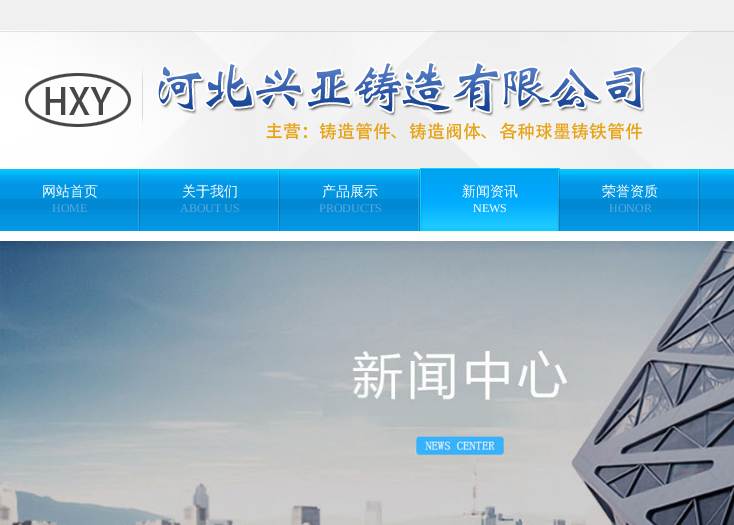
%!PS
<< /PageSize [734 525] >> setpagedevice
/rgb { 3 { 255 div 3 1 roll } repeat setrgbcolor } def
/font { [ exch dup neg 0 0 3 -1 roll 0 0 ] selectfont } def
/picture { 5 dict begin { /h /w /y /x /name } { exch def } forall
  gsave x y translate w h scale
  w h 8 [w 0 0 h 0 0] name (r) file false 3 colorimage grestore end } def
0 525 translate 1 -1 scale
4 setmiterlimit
255 255 255 rgb
0 0 734 525 rectfill
(img/1.rgb) 0 0 734 231 picture
(img/2.rgb) 25 61 621 79 picture
(img/3.rgb) 138 170 2 61 picture
(img/3.rgb) 278 170 2 61 picture
(img/3.rgb) 418 170 2 61 picture
(img/4.rgb) 420 168 140 63 picture
(img/3.rgb) 558 170 2 61 picture
(img/3.rgb) 698 170 2 61 picture
(img/5.rgb) 0 241 734 284 picture
/WenQuanYiZenHei-Medium 14 font
42 196 moveto (网站首页) show
/LiberationSerif-Regular 12 font
88 167 223 rgb
52 212 moveto (HOME) show
/WenQuanYiZenHei-Medium 14 font
255 255 255 rgb
182 196 moveto (关于我们) show
/LiberationSerif-Regular 12 font
88 167 223 rgb
180 212 moveto (ABOUT US) show
/WenQuanYiZenHei-Medium 14 font
255 255 255 rgb
322 196 moveto (产品展示) show
/LiberationSerif-Regular 12 font
88 167 223 rgb
319 212 moveto (PRODUCTS) show
/WenQuanYiZenHei-Medium 14 font
255 255 255 rgb
462 196 moveto (新闻资讯) show
/LiberationSerif-Regular 12 font
473 212 moveto (NEWS) show
/WenQuanYiZenHei-Medium 14 font
602 196 moveto (荣誉资质) show
/LiberationSerif-Regular 12 font
88 167 223 rgb
609 212 moveto (HONOR) show
showpage
